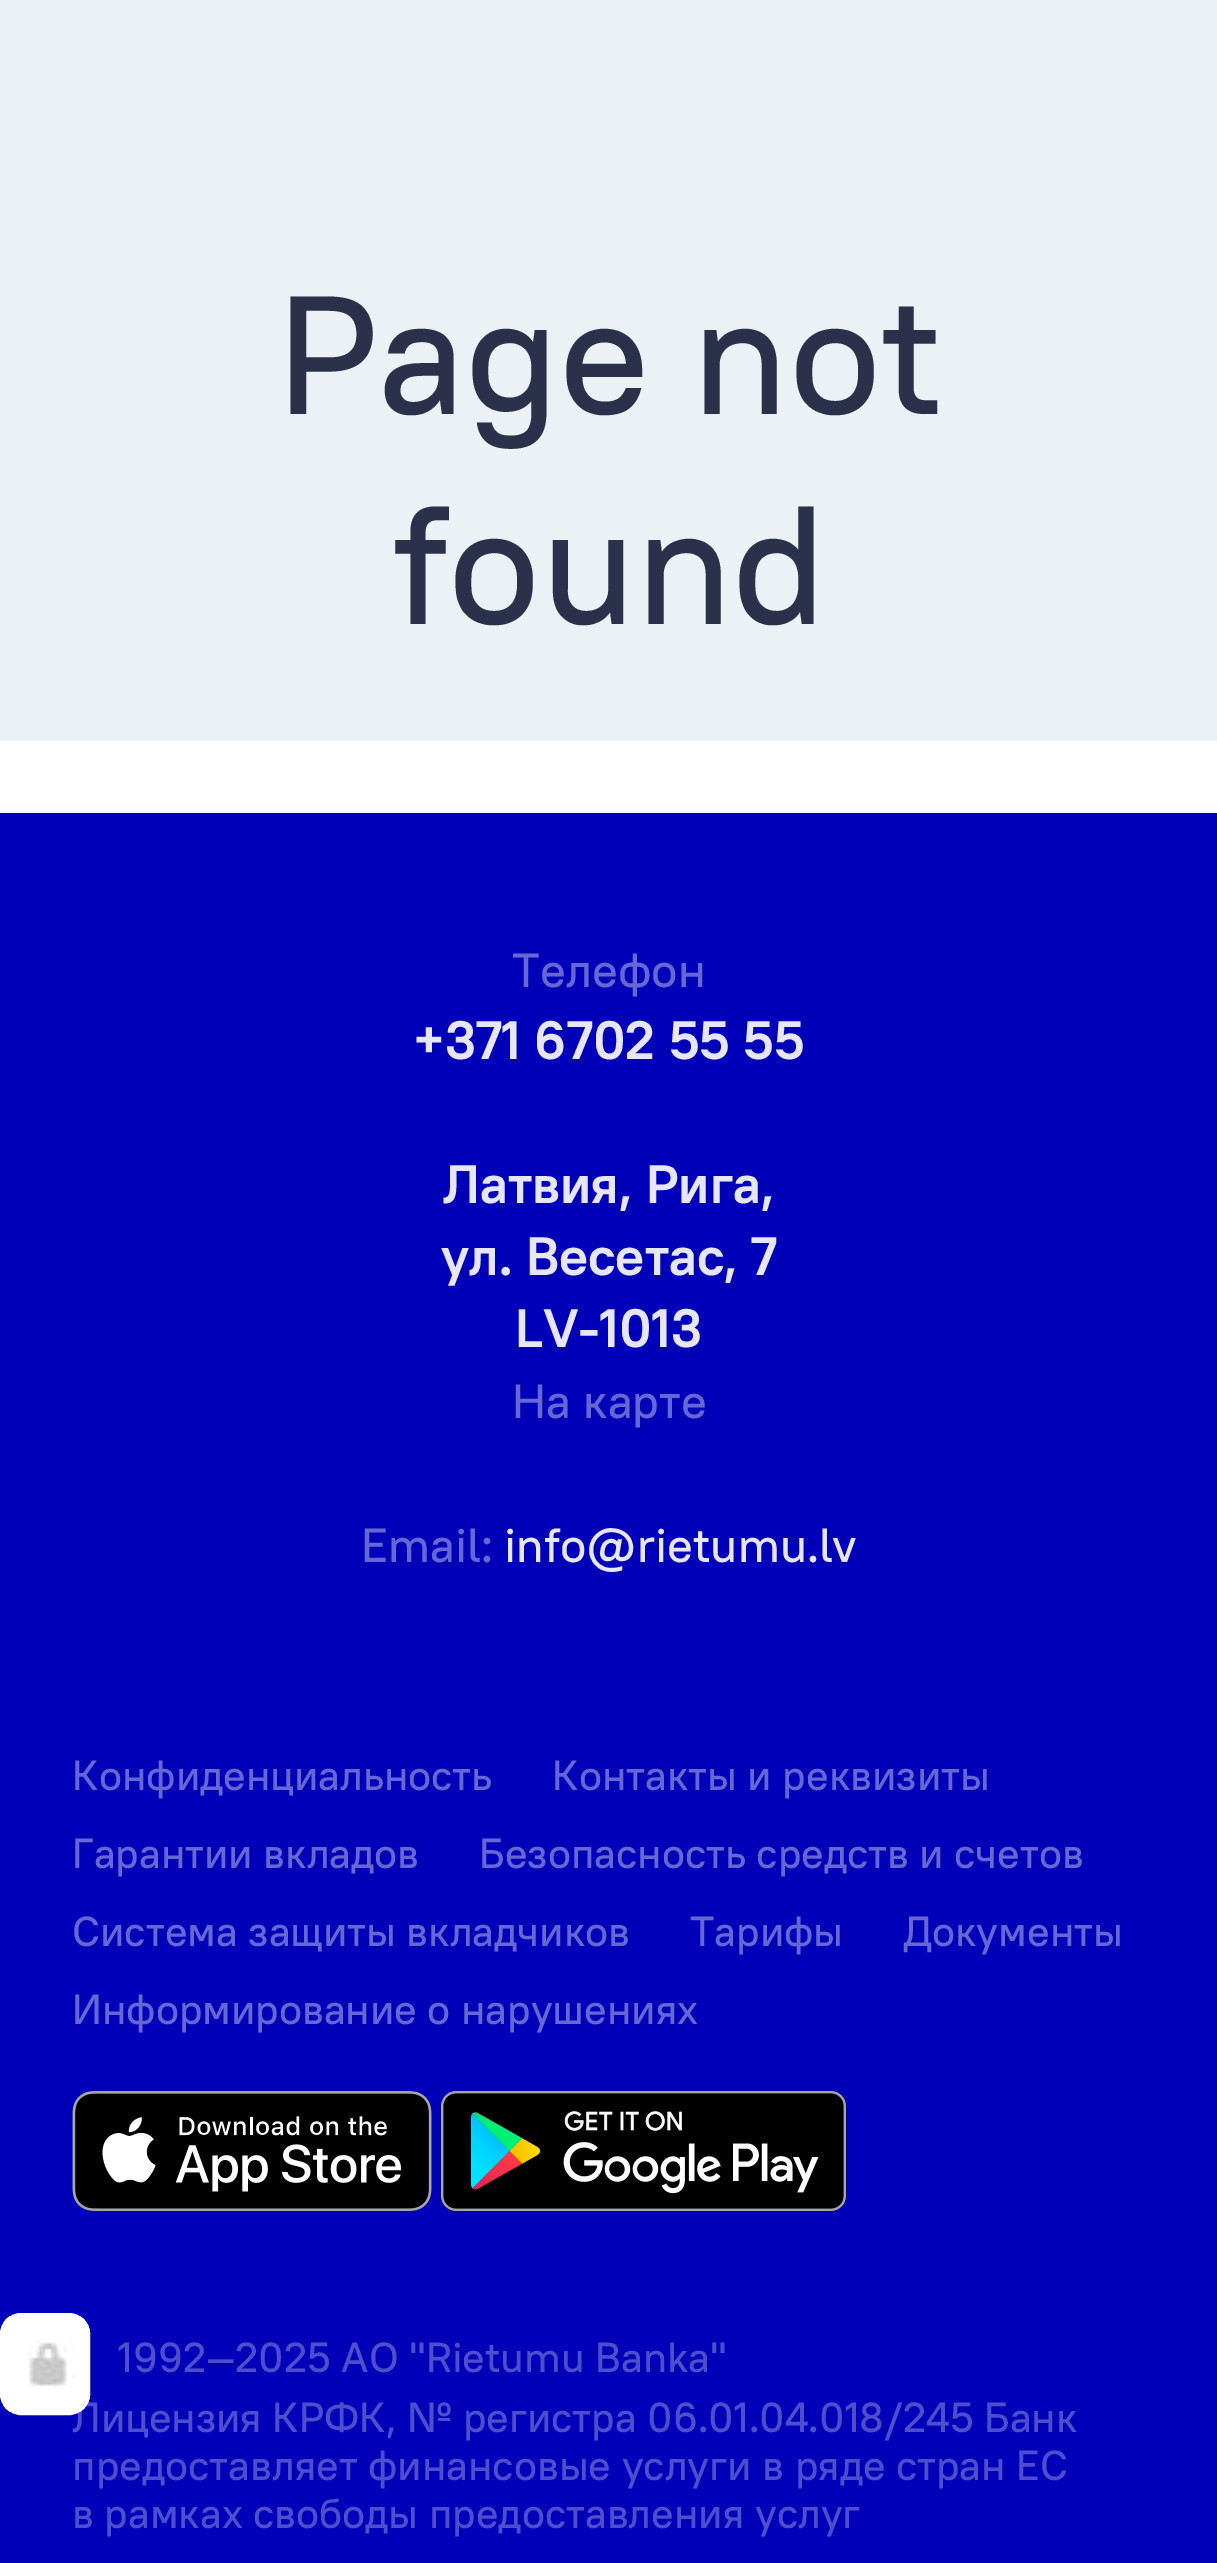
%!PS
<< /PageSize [1217 2563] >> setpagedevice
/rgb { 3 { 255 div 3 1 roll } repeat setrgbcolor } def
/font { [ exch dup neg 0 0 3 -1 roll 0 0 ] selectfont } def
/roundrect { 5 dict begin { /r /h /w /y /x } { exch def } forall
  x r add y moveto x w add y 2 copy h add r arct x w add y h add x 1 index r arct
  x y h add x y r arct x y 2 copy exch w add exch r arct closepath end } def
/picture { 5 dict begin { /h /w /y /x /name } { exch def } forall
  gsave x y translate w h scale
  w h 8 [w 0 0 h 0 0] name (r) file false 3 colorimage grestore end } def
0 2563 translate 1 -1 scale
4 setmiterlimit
255 255 255 rgb
0 0 1217 2563 rectfill
235 241 245 rgb
0 0 1217 741 rectfill
0 0 185 rgb
0 813 1217 1750 rectfill
(img/2.rgb) 72 2091 360 120 picture
(img/3.rgb) 441 2091 405 120 picture
/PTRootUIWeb-Medium 168 font
43 49 74 rgb
277 414 moveto (Page not) show
392 624 moveto (found) show
/PTRootUIWeb-Medium 48 font
102 102 213 rgb
512 987 moveto (Телефон) show
/PTRootUIWeb-Bold 54 font
230 230 248 rgb
[
  [(+371 6702 55 55) 413 1059]
  [(Латвия, Рига,) 443 1203]
  [(ул. Весетас, 7) 441 1275]
  [(LV-1013) 515 1347]
] { aload pop moveto show } forall
/PTRootUIWeb-Medium 48 font
102 102 213 rgb
512 1418 moveto (На карте) show
361 1562 moveto (Email:) show
230 230 248 rgb
504 1562 moveto (info@rietumu.lv) show
/PTRootUIWeb-Medium 42 font
102 102 213 rgb
[
  [(Конфиденциальность) 72 1790]
  [(Контакты и реквизиты) 552 1790]
  [(Гарантии вкладов) 72 1868]
  [(Безопасность средств и счетов) 479 1868]
  [(Система защиты вкладчиков) 72 1946]
  [(Тарифы) 690 1946]
  [(Документы) 903 1946]
  [(Информирование о нарушениях) 72 2024]
] { aload pop moveto show } forall
77 77 206 rgb
118 2372 moveto (1992—2025 АО "Rietumu Banka") show
72 2432 moveto (Лицензия КРФК, № регистра 06.01.04.018/245 Банк) show
(img/1.rgb) 3 2316 87 96 picture
255 255 255 rgb
3 setlinewidth
1.5 2314.5 87 99 19.5 roundrect stroke
77 77 206 rgb
72 2480 moveto (предоставляет финансовые услуги в ряде стран ЕС) show
72 2528 moveto (в рамках свободы предоставления услуг) show
showpage
